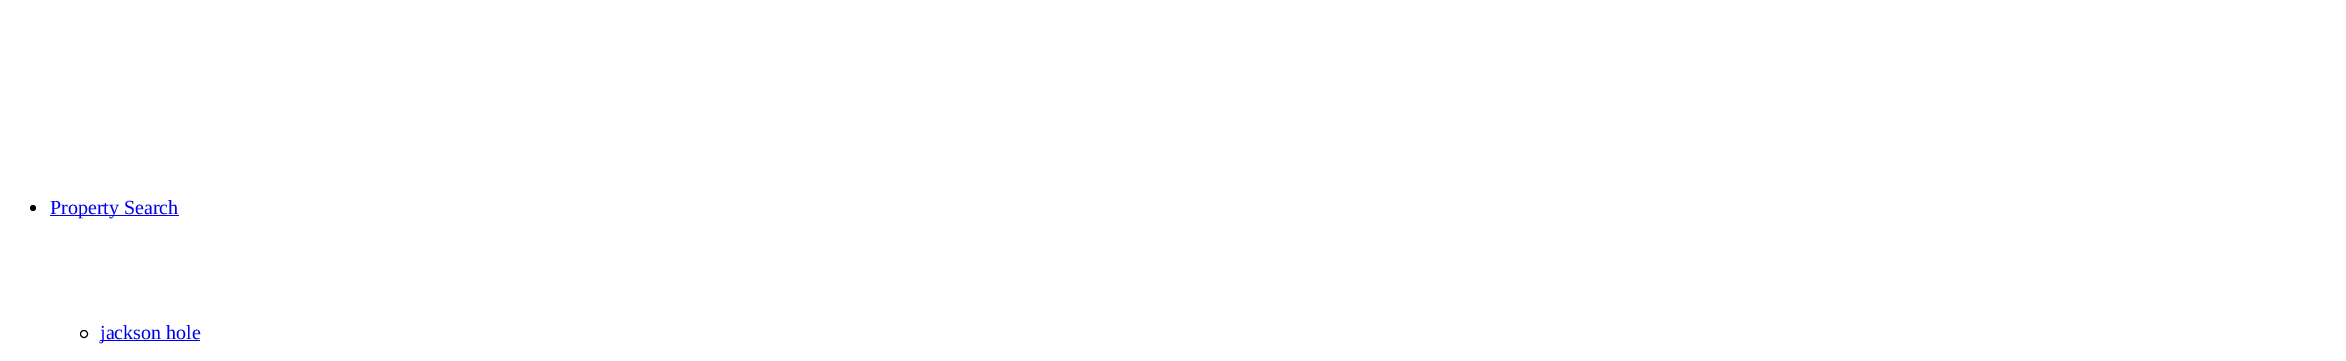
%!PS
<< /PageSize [2346 361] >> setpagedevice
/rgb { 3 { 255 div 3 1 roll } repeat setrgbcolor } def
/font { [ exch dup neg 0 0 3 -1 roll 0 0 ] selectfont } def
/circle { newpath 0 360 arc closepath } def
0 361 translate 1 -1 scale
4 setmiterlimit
255 255 255 rgb
0 0 2346 361 rectfill
0 0 0 rgb
33 208 3 circle fill
0 0 238 rgb
50 215 129 1 rectfill
0 0 0 rgb
84 334 3.5 circle stroke
0 0 238 rgb
100 340 100 1 rectfill
/LiberationSerif-Regular 20 font
50 214 moveto (Property Search) show
100 339 moveto (jackson hole) show
showpage
